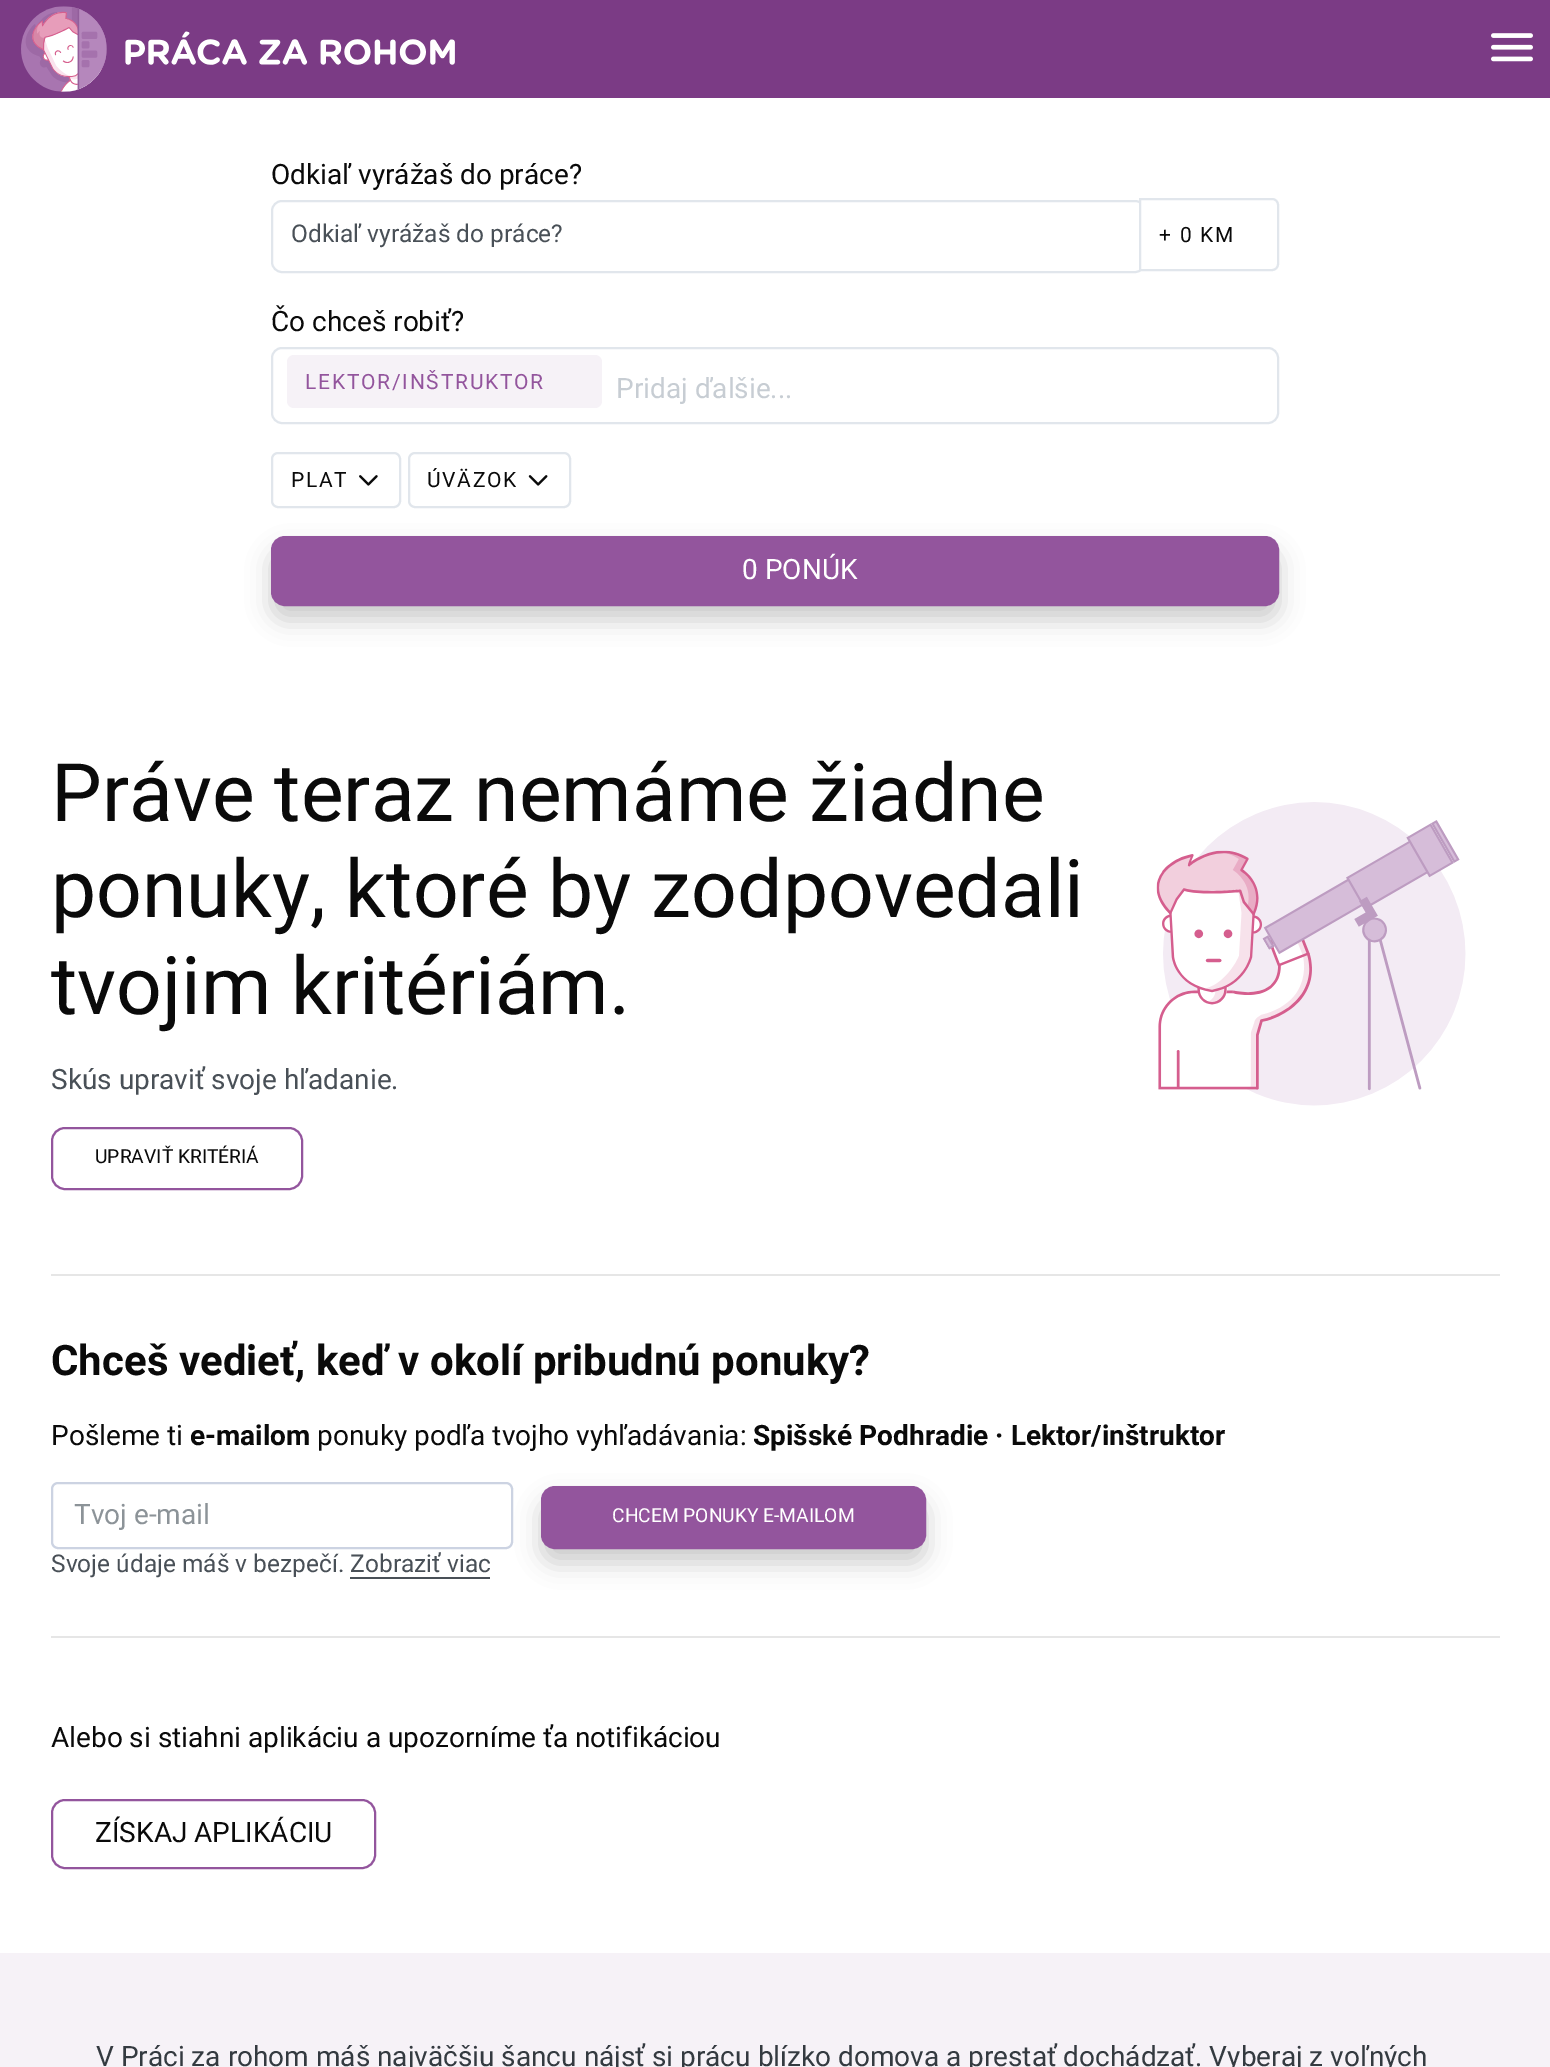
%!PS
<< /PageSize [1550 2067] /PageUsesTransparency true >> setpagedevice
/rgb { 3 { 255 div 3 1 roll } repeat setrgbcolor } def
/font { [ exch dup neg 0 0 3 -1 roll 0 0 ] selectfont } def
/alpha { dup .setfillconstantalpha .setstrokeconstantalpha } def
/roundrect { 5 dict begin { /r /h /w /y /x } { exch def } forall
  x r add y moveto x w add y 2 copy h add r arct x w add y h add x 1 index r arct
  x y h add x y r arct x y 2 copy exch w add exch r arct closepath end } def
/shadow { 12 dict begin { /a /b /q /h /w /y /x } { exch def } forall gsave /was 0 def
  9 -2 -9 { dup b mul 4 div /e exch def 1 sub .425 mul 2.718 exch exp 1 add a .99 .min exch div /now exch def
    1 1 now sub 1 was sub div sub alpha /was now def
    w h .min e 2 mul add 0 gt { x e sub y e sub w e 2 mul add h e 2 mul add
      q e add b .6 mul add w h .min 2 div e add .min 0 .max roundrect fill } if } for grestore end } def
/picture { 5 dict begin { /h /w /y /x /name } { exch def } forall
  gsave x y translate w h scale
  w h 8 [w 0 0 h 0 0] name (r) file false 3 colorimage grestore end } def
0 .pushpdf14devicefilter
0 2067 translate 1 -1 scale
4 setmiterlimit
255 255 255 rgb
0 0 1550 2067 rectfill
123 59 133 rgb
0 0 1550 98 rectfill
(img/1.rgb) 21 6 434 86 picture
(img/2.rgb) 1491 33 42 29 picture
225 230 236 rgb
2 setlinewidth
272 201 873 71 10 roundrect stroke
255 255 255 rgb
1140 199 moveto 1272 199 lineto 1275.5 199 1278 201.5 1278 205 curveto 1278 264 lineto 1278 267.5 1275.5 270 1272 270 curveto 1140 270 lineto closepath gsave fill grestore
225 230 236 rgb
stroke
272 348 1006 75 10 roundrect stroke
246 242 247 rgb
287 355 315 53 7 roundrect fill
225 230 236 rgb
272 453 128 54 6 roundrect stroke
(img/3.rgb) 359 475 19 11 picture
409 453 161 54 6 roundrect stroke
(img/4.rgb) 528 475 20 11 picture
0 0 0 rgb
271 550 1008 70 14 12 0.2 shadow
147 85 157 rgb
272 537 1006 68 13 roundrect gsave fill grestore
stroke
52 1128 250 61 13 roundrect stroke
(img/5.rgb) 1156 802 310 304 picture
230 230 230 rgb
51 1274 1449 2 rectfill
204 211 226 rgb
52 1483 460 65 6 roundrect stroke
0 0 0 rgb
541 1500 385 63 14 12 0.2 shadow
147 85 157 rgb
542 1487 383 61 13 roundrect gsave fill grestore
stroke
73 80 87 rgb
350 1577 140 2 rectfill
230 230 230 rgb
51 1636 1449 2 rectfill
147 85 157 rgb
52 1800 323 68 13 roundrect stroke
246 242 247 rgb
0 1953 1550 114 rectfill
/Roboto-Regular 28 font
10 10 10 rgb
271 184 moveto (Odkiaľ vyrážaš do práce?) show
/Roboto-Regular 24.5 font
73 80 87 rgb
291 242 moveto (Odkiaľ vyrážaš do práce?) show
/Roboto-Regular 21 font
10 10 10 rgb
1159 242 moveto 1.75 0 (+ 0 KM) ashow
/Roboto-Regular 28 font
271 331 moveto (Čo chceš robiť?) show
/Roboto-Regular 21 font
147 85 157 rgb
305 389 moveto 1.75 0 (LEKTOR/INŠTRUKTOR) ashow
/Roboto-Regular 28 font
199 205 211 rgb
616 398 moveto (Pridaj ďalšie...) show
/Roboto-Regular 21 font
10 10 10 rgb
291 487 moveto 1.75 0 (PLAT) ashow
427 487 moveto 1.75 0 (ÚVÄZOK) ashow
/Roboto-Regular 28 font
255 255 255 rgb
742 579 moveto (0 PONÚK) show
/Roboto-Regular 80.5 font
10 10 10 rgb
[
  [(Práve teraz nemáme žiadne) 51 821]
  [(ponuky, ktoré by zodpovedali) 51 917]
  [(tvojim kritériám.) 51 1014]
] { aload pop moveto show } forall
/Roboto-Regular 28 font
73 80 87 rgb
51 1089 moveto (Skús upraviť svoje hľadanie.) show
/Roboto-Regular 19.25 font
10 10 10 rgb
95 1163 moveto (UPRAVIŤ KRITÉRIÁ) show
/Roboto-Bold 42 font
51 1375 moveto (Chceš vedieť, keď v okolí pribudnú ponuky?) show
/Roboto-Regular 28 font
51 1445 moveto (Pošleme ti) show
/Roboto-Bold 28 font
190 1445 moveto (e-mailom) show
/Roboto-Regular 28 font
317 1445 moveto (ponuky podľa tvojho vyhľadávania:) show
/Roboto-Bold 28 font
753 1445 moveto (Spišské Podhradie · Lektor/inštruktor) show
/Roboto-Regular 28 font
140 147 152 rgb
74 1524 moveto (Tvoj e-mail) show
/Roboto-Regular 19.25 font
255 255 255 rgb
612 1522 moveto (CHCEM PONUKY E-MAILOM) show
/Roboto-Regular 24.5 font
73 80 87 rgb
51 1572 moveto (Svoje údaje máš v bezpečí. Zobraziť viac) show
/Roboto-Regular 28 font
10 10 10 rgb
51 1747 moveto (Alebo si stiahni aplikáciu a upozorníme ťa notifikáciou) show
95 1842 moveto (ZÍSKAJ APLIKÁCIU) show
52 58 64 rgb
96 2066 moveto (V Práci za rohom máš najväčšiu šancu nájsť si prácu blízko domova a prestať dochádzať. Vyberaj z voľných) show
.poppdf14devicefilter showpage
